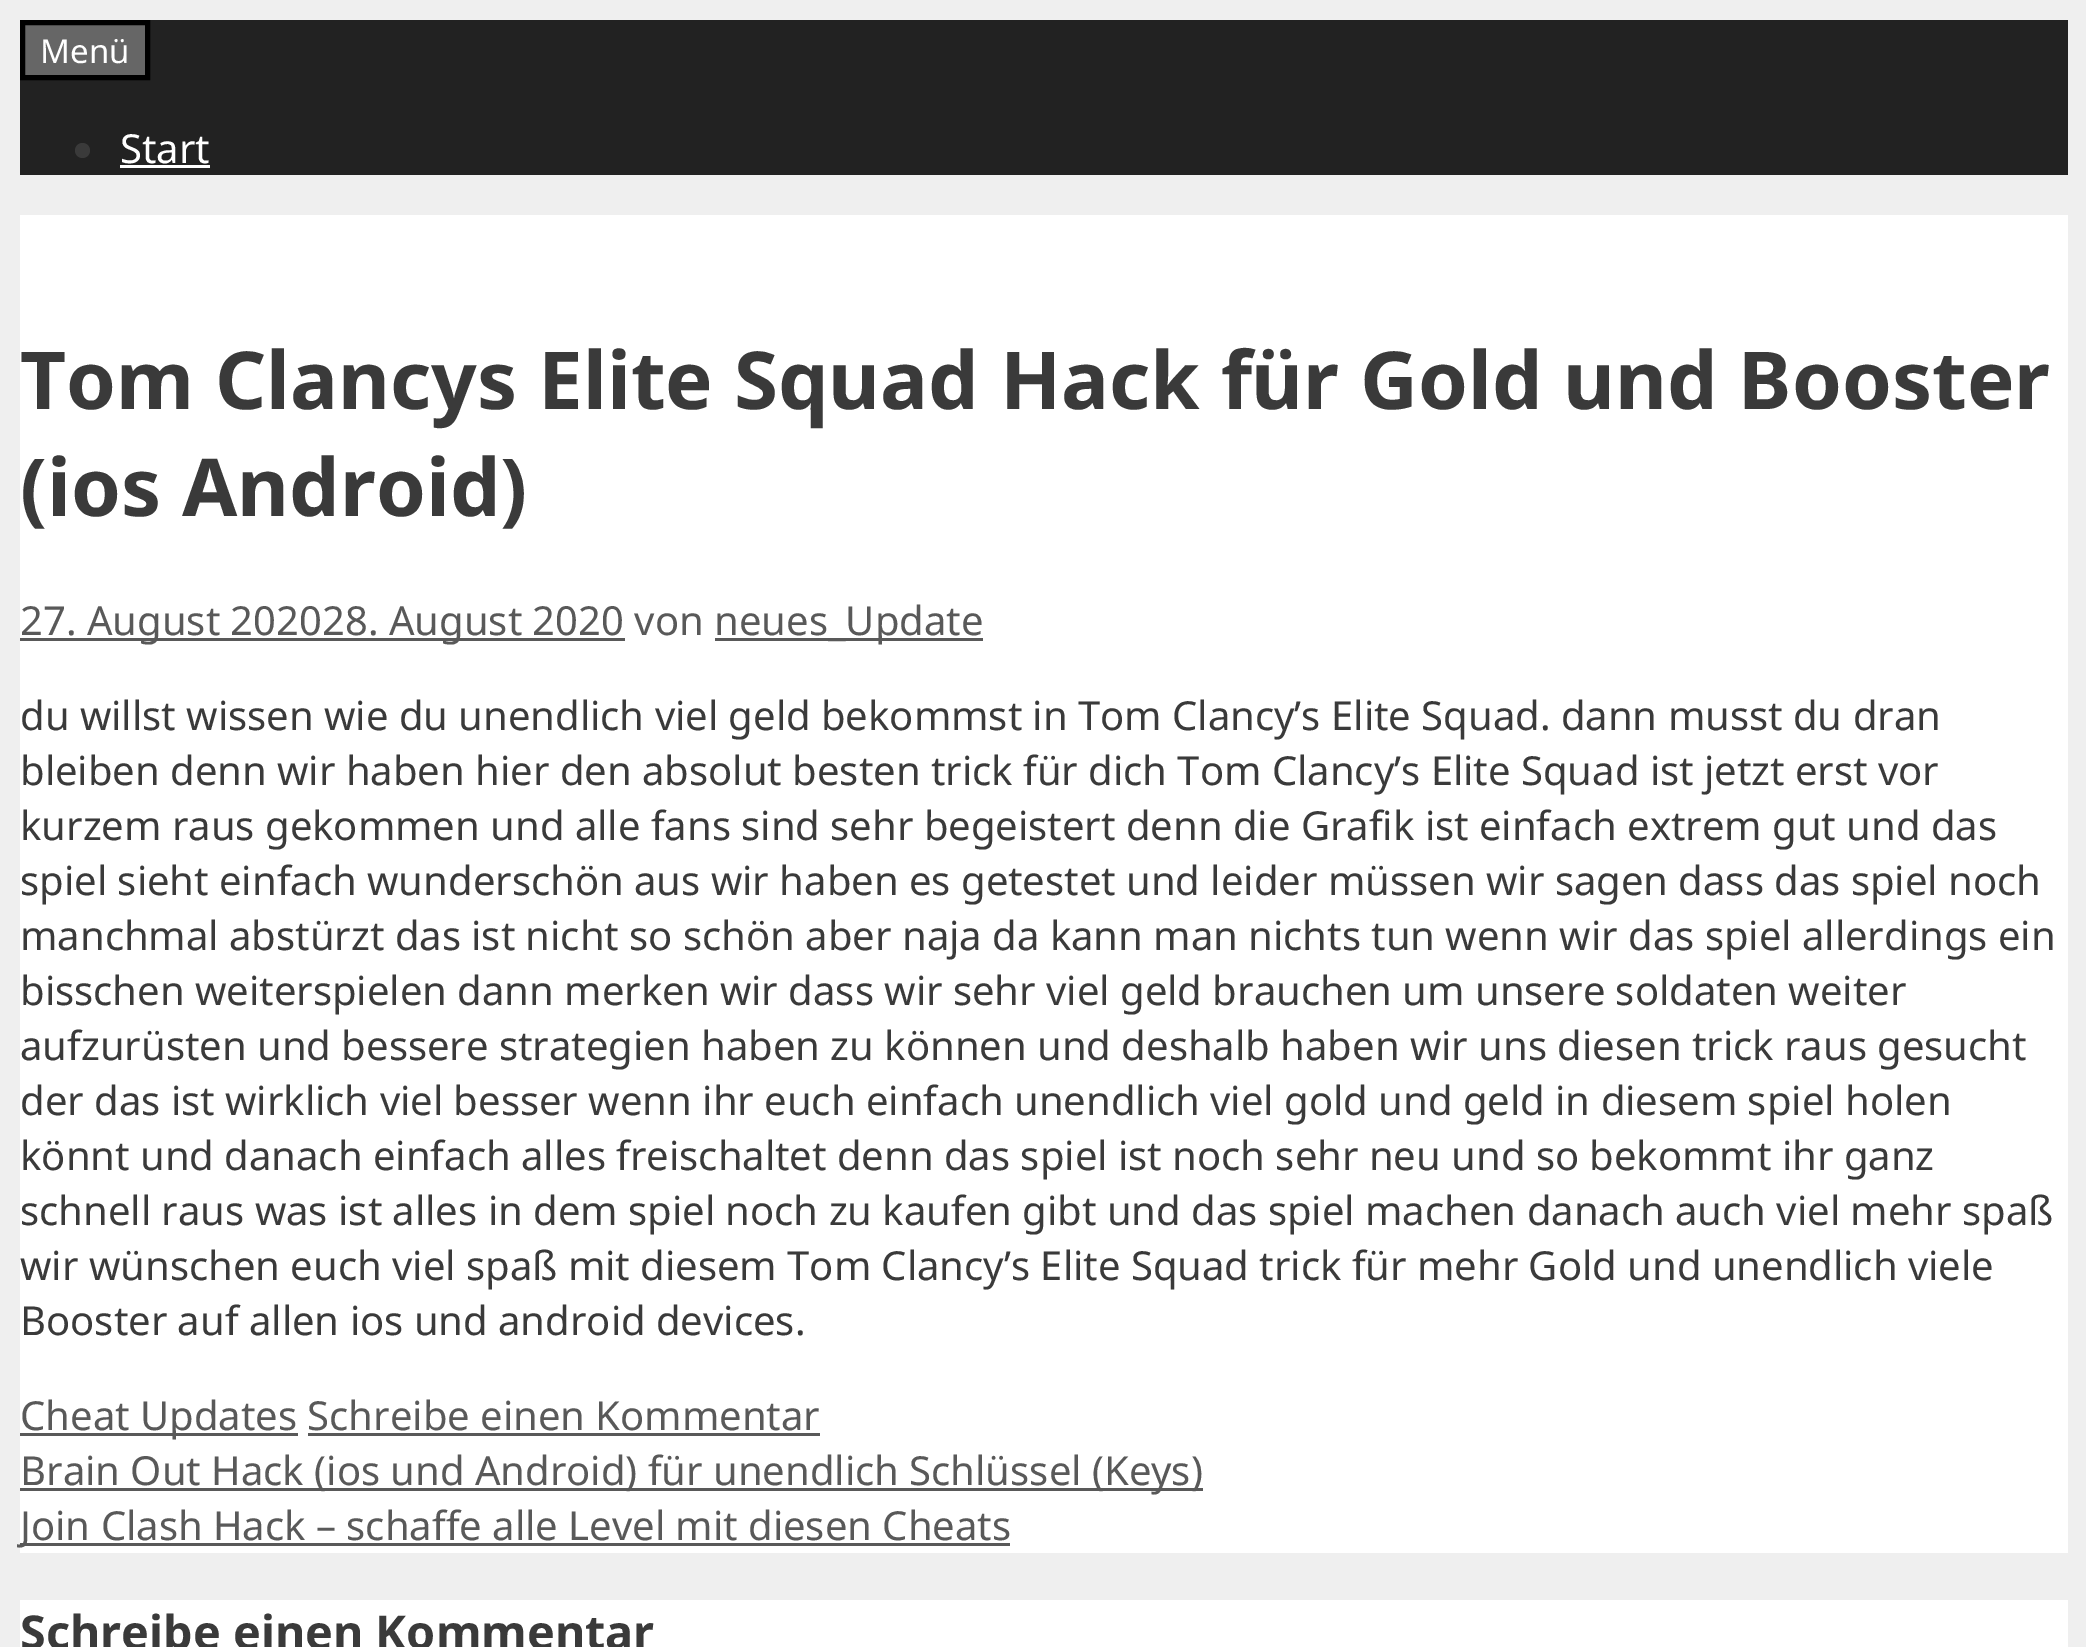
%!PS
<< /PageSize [2086 1647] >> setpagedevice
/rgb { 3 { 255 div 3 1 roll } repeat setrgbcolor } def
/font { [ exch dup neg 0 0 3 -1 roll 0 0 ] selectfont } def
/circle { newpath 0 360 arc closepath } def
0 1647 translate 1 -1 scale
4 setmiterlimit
239 239 239 rgb
0 0 2086 1647 rectfill
34 34 34 rgb
20 20 2048 155 rectfill
102 102 102 rgb
22.5 22.5 moveto 147.5 22.5 lineto 147.5 77.5 lineto 22.5 77.5 lineto closepath gsave fill grestore
0 0 0 rgb
5 setlinewidth
stroke
58 58 58 rgb
82.5 150.5 7.5 circle fill
[
  [120 165 90 3 255 255 255]
  [20 215 2048 1338 255 255 255]
  [20 638 605 3 89 89 89]
  [715 638 268 3 89 89 89]
  [20 1433 278 3 89 89 89]
  [308 1433 512 3 89 89 89]
  [20 1488 1183 3 89 89 89]
  [20 1543 990 3 89 89 89]
  [20 1600 2048 47 255 255 255]
] { aload pop rgb rectfill } forall
/NotoSans-Regular 33 font
40 63 moveto (Menü) show
/NotoSans-Regular 40 font
120 163 moveto (Start) show
/NotoSans-Bold 80 font
58 58 58 rgb
20 409 moveto (Tom Clancys Elite Squad Hack für Gold und Booster) show
20 516 moveto (\(ios Android\)) show
/NotoSans-Regular 40 font
89 89 89 rgb
20 635 moveto (27. August 202028. August 2020 von) show
714 635 moveto (neues_Update) show
58 58 58 rgb
[
  [(du willst wissen wie du unendlich viel geld bekommst in Tom Clancy’s Elite Squad. dann musst du dran) 20 730]
  [(bleiben denn wir haben hier den absolut besten trick für dich Tom Clancy’s Elite Squad ist jetzt erst vor) 20 785]
  [(kurzem raus gekommen und alle fans sind sehr begeistert denn die Grafik ist einfach extrem gut und das) 20 840]
  [(spiel sieht einfach wunderschön aus wir haben es getestet und leider müssen wir sagen dass das spiel noch) 20 895]
  [(manchmal abstürzt das ist nicht so schön aber naja da kann man nichts tun wenn wir das spiel allerdings ein) 20 950]
  [(bisschen weiterspielen dann merken wir dass wir sehr viel geld brauchen um unsere soldaten weiter) 20 1005]
  [(aufzurüsten und bessere strategien haben zu können und deshalb haben wir uns diesen trick raus gesucht) 20 1060]
  [(der das ist wirklich viel besser wenn ihr euch einfach unendlich viel gold und geld in diesem spiel holen) 20 1115]
  [(könnt und danach einfach alles freischaltet denn das spiel ist noch sehr neu und so bekommt ihr ganz) 20 1170]
  [(schnell raus was ist alles in dem spiel noch zu kaufen gibt und das spiel machen danach auch viel mehr spaß) 20 1225]
  [(wir wünschen euch viel spaß mit diesem Tom Clancy’s Elite Squad trick für mehr Gold und unendlich viele) 20 1280]
  [(Booster auf allen ios und android devices.) 20 1335]
] { aload pop moveto show } forall
89 89 89 rgb
[
  [(Cheat Updates Schreibe einen Kommentar) 20 1430]
  [(Brain Out Hack \(ios und Android\) für unendlich Schlüssel \(Keys\)) 20 1485]
  [(Join Clash Hack – schaffe alle Level mit diesen Cheats) 20 1540]
] { aload pop moveto show } forall
/NotoSans-Bold 46.75 font
58 58 58 rgb
20 1649 moveto (Schreibe einen Kommentar) show
showpage
